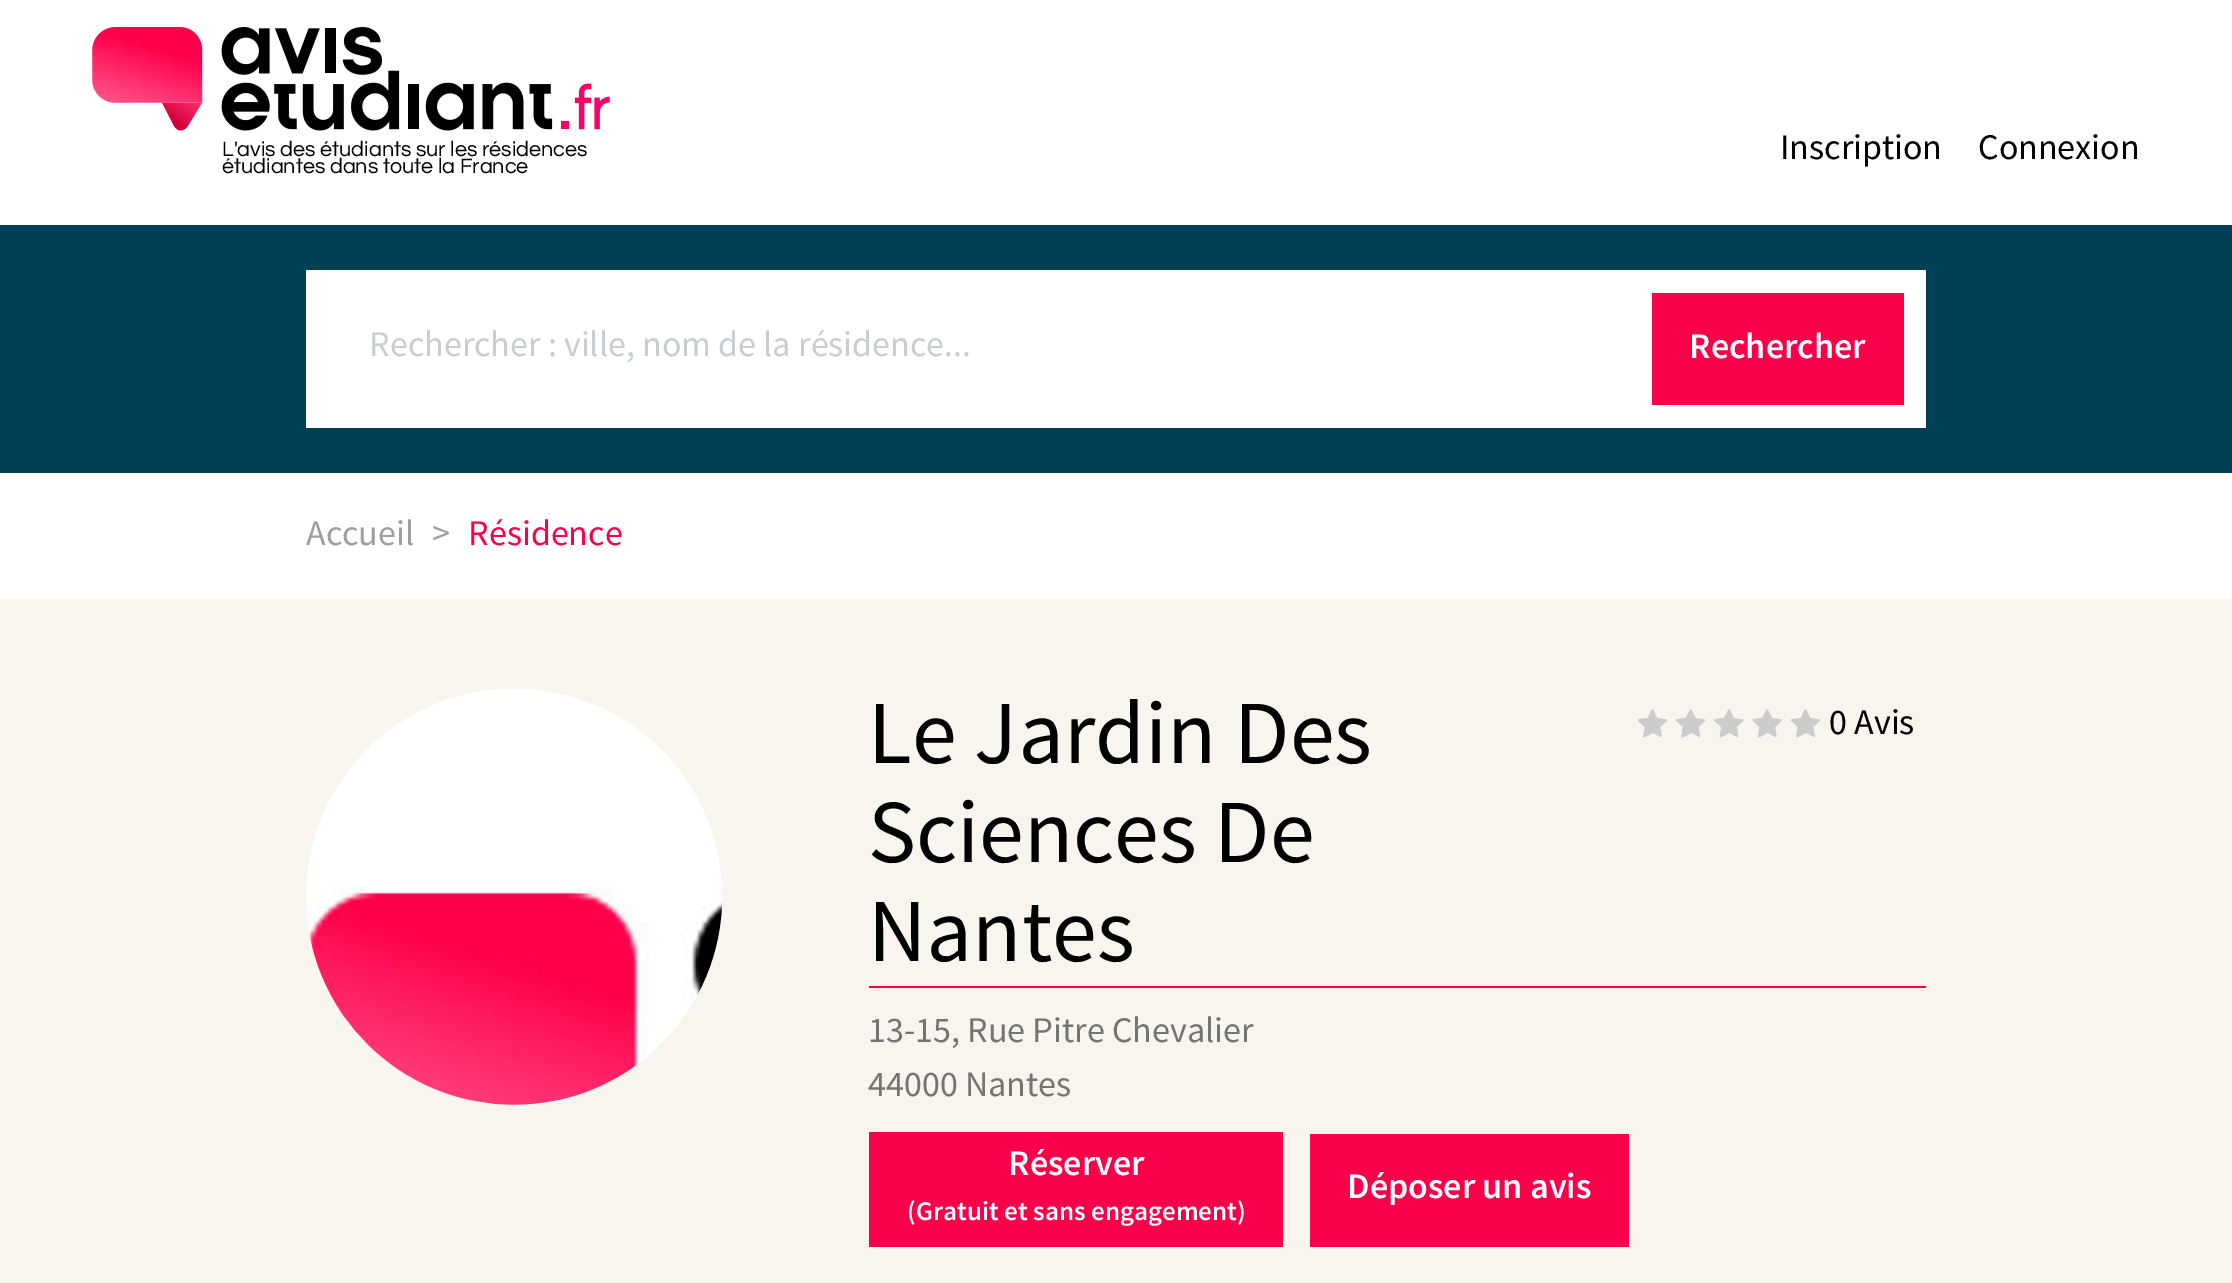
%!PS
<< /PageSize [2232 1283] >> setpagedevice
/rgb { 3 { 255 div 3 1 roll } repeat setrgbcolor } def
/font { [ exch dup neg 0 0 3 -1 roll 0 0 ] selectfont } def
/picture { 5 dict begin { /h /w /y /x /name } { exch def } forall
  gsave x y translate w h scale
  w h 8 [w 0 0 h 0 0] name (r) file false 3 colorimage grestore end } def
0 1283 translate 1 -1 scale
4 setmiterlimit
255 255 255 rgb
0 0 2232 1283 rectfill
(img/1.rgb) 92 27 518 104 picture
[
  [0 225 2232 248 0 64 85]
  [306 270 1620 158 255 255 255]
  [1652 293 252 112 251 0 74]
  [0 599 2232 684 248 245 238]
] { aload pop rgb rectfill } forall
(img/2.rgb) 306 688 417 417 picture
251 0 74 rgb
869 986 1057 2 rectfill
(img/3.rgb) 1638 709 30 29 picture
204 204 204 rgb
1652.5 709.5 moveto 1652.5 733 lineto 1641 739 1642.5 740 1645 727 curveto 1635.5 718 1634.5 720 1648 718 curveto 1648.5 717 1651.5 709.5 1652.5 709.5 curveto closepath fill
(img/4.rgb) 1676 709 30 29 picture
(img/5.rgb) 1714 709 30 29 picture
1729 709.5 moveto 1729 733 lineto 1717.5 739 1719 740 1721.5 727 curveto 1712 718 1711 720 1724.5 718 curveto 1725 717 1728 709.5 1729 709.5 curveto closepath 1691 709.5 moveto 1691 733 lineto 1679 739 1681 740 1683 727 curveto 1674 718 1672.5 720 1686 718 curveto 1686.5 717 1690 709.5 1691 709.5 curveto closepath fill
(img/6.rgb) 1752 709 30 29 picture
(img/3.rgb) 1791 709 30 29 picture
1805.5 709.5 moveto 1805.5 733 lineto 1794 739 1795.5 740 1798 727 curveto 1788.5 718 1787.5 720 1801 718 curveto 1801.5 717 1804.5 709.5 1805.5 709.5 curveto closepath 1767.5 709.5 moveto 1767.5 733 lineto 1755.5 739 1757.5 740 1759.5 727 curveto 1750.5 718 1749 720 1762.5 718 curveto 1763 717 1766.5 709.5 1767.5 709.5 curveto closepath fill
251 0 74 rgb
869 1132 414 115 rectfill
1310 1134 319 113 rectfill
/Questrial-Regular 21.6 font
0 0 0 rgb
222 156 moveto (L'avis des étudiants sur les résidences) show
222 173 moveto (étudiantes dans toute la France) show
/SourceSansPro-Regular 36 font
1780 159 moveto (Inscription) show
1978 159 moveto (Connexion) show
200 205 210 rgb
369 356 moveto (Rechercher : ville, nom de la résidence...) show
/SourceSansPro-SemiBold 36 font
255 255 255 rgb
1689 358 moveto (Rechercher) show
/SourceSansPro-Regular 36 font
158 158 158 rgb
306 545 moveto (Accueil) show
432 545 moveto (>) show
251 0 74 rgb
468 545 moveto (Résidence) show
/SourceSansPro-Regular 90 font
0 0 0 rgb
[
  [(Le Jardin Des) 868 763]
  [(Sciences De) 868 862]
  [(Nantes) 868 961]
] { aload pop moveto show } forall
/SourceSansPro-Regular 36 font
1829 734 moveto (0 Avis) show
116 116 116 rgb
868 1042 moveto (13-15, Rue Pitre Chevalier) show
868 1096 moveto (44000 Nantes) show
/SourceSansPro-SemiBold 36 font
255 255 255 rgb
1008 1175 moveto (Réserver) show
/SourceSansPro-SemiBold 27 font
907 1220 moveto (\(Gratuit et sans engagement\)) show
/SourceSansPro-SemiBold 36 font
1347 1198 moveto (Déposer un avis) show
showpage
